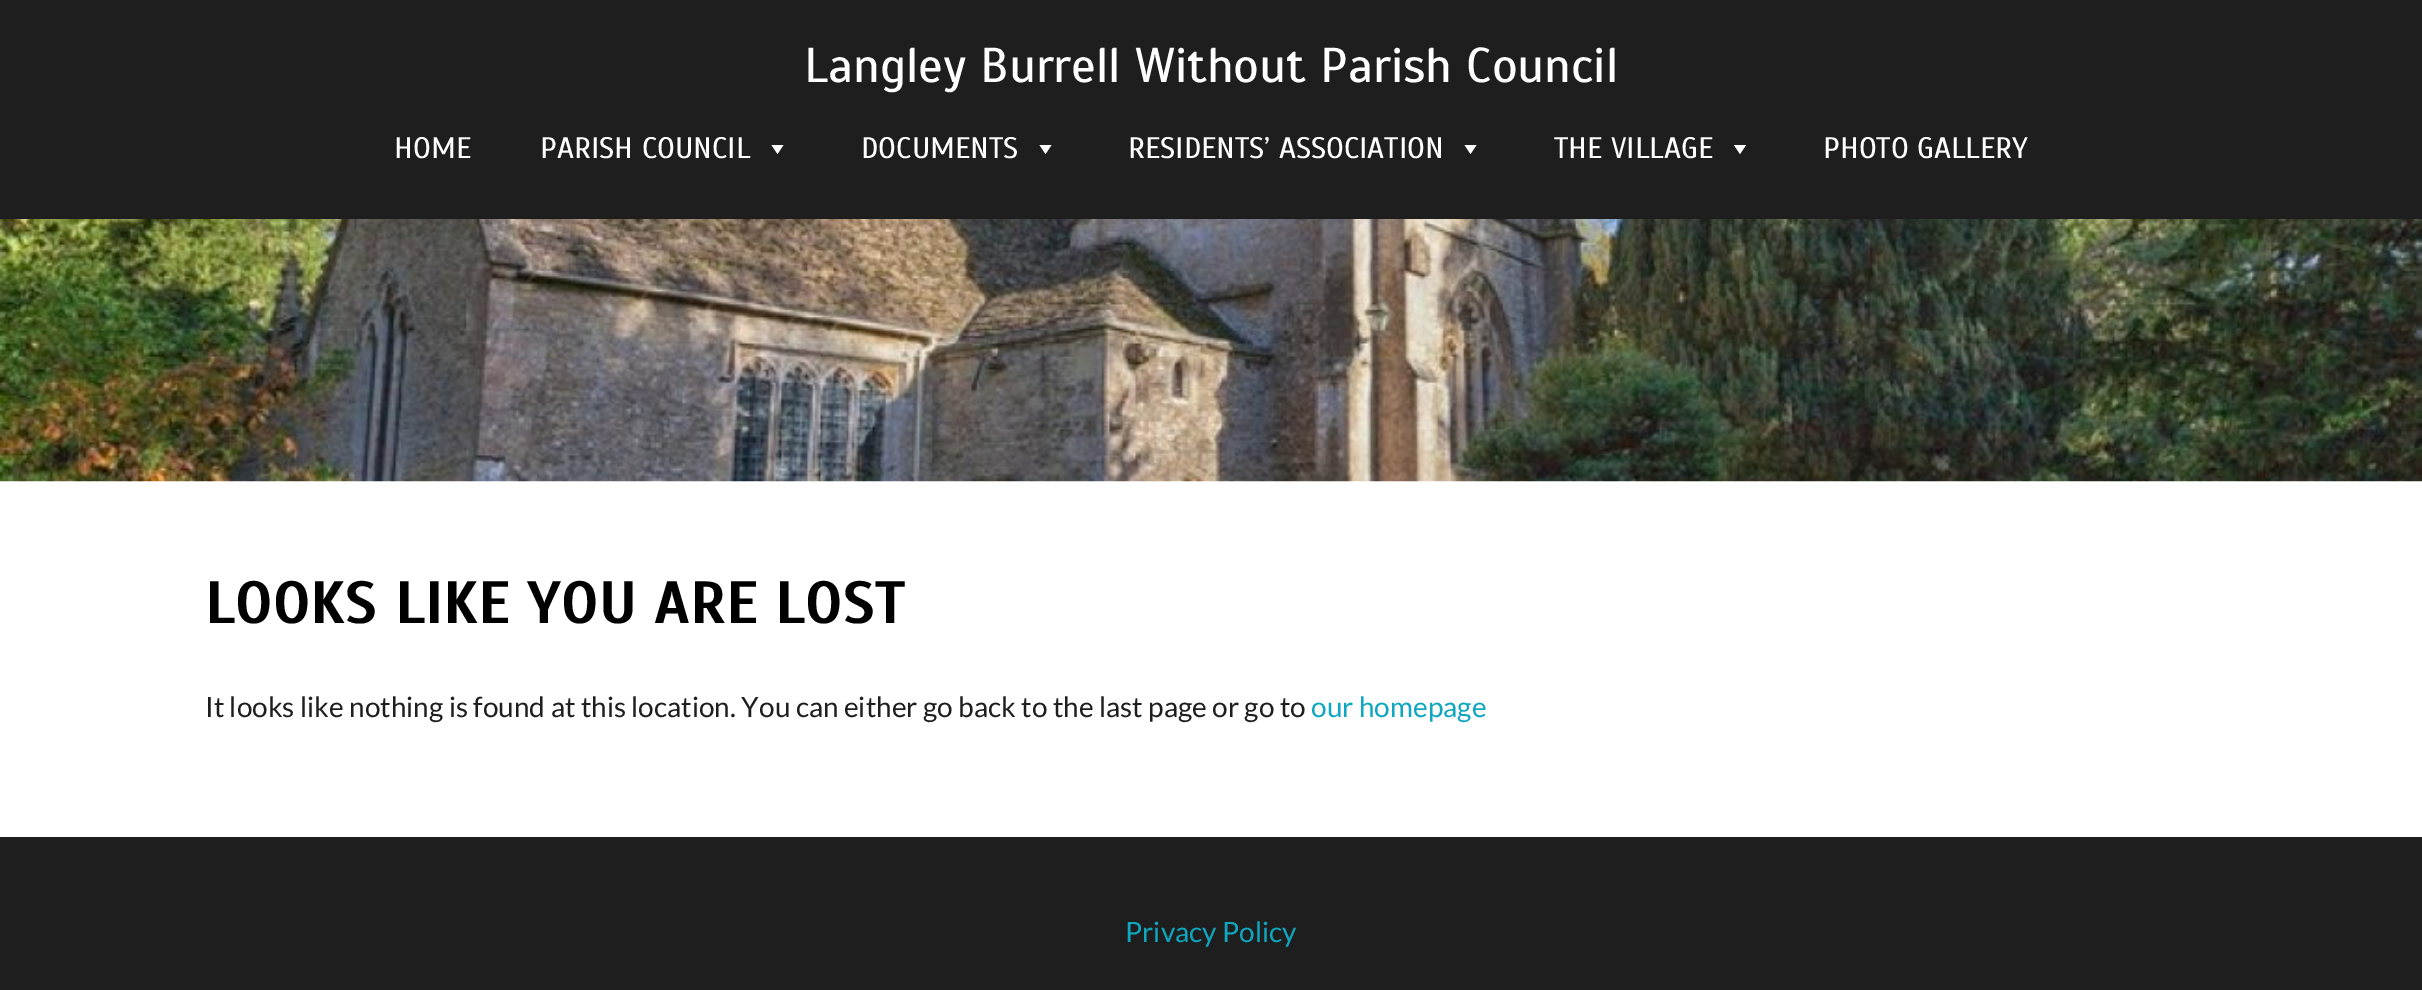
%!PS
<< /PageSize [2422 990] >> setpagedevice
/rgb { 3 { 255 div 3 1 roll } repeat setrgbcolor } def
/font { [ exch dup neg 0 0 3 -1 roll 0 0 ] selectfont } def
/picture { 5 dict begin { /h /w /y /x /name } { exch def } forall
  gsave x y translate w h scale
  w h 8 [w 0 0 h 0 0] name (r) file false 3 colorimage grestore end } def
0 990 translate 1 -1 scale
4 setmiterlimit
255 255 255 rgb
0 0 2422 990 rectfill
30 30 30 rgb
0 0 2422 219 rectfill
255 255 255 rgb
783.5 145 moveto 777.5 154 lineto 771.5 145 lineto closepath fill
1051.5 145 moveto 1045.5 154 lineto 1039.5 145 lineto closepath fill
1476.5 145 moveto 1470.5 154 lineto 1464.5 145 lineto closepath fill
1746 145 moveto 1740 154 lineto 1734 145 lineto closepath fill
(img/1.rgb) 0 219 2422 263 picture
30 30 30 rgb
0 837 2422 153 rectfill
/Scada-Regular 49 font
255 255 255 rgb
804 82 moveto (Langley Burrell Without Parish Council) show
/Scada-Regular 29.75 font
[
  [(HOME) 394 158]
  [(PARISH COUNCIL) 540 158]
  [(DOCUMENTS) 861 158]
  [(RESIDENTS’ ASSOCIATION) 1128 158]
  [(THE VILLAGE) 1554 158]
  [(PHOTO GALLERY) 1823 158]
] { aload pop moveto show } forall
/Scada-Bold 59.5 font
0 0 0 rgb
205 623 moveto (LOOKS LIKE YOU ARE LOST) show
/Lato-Regular 28 font
30 30 30 rgb
205 717 moveto (It looks like nothing is found at this location. You can either go back to the last page or go to) show
15 167 191 rgb
1311 717 moveto (our homepage) show
1125 942 moveto (Privacy Policy) show
showpage
